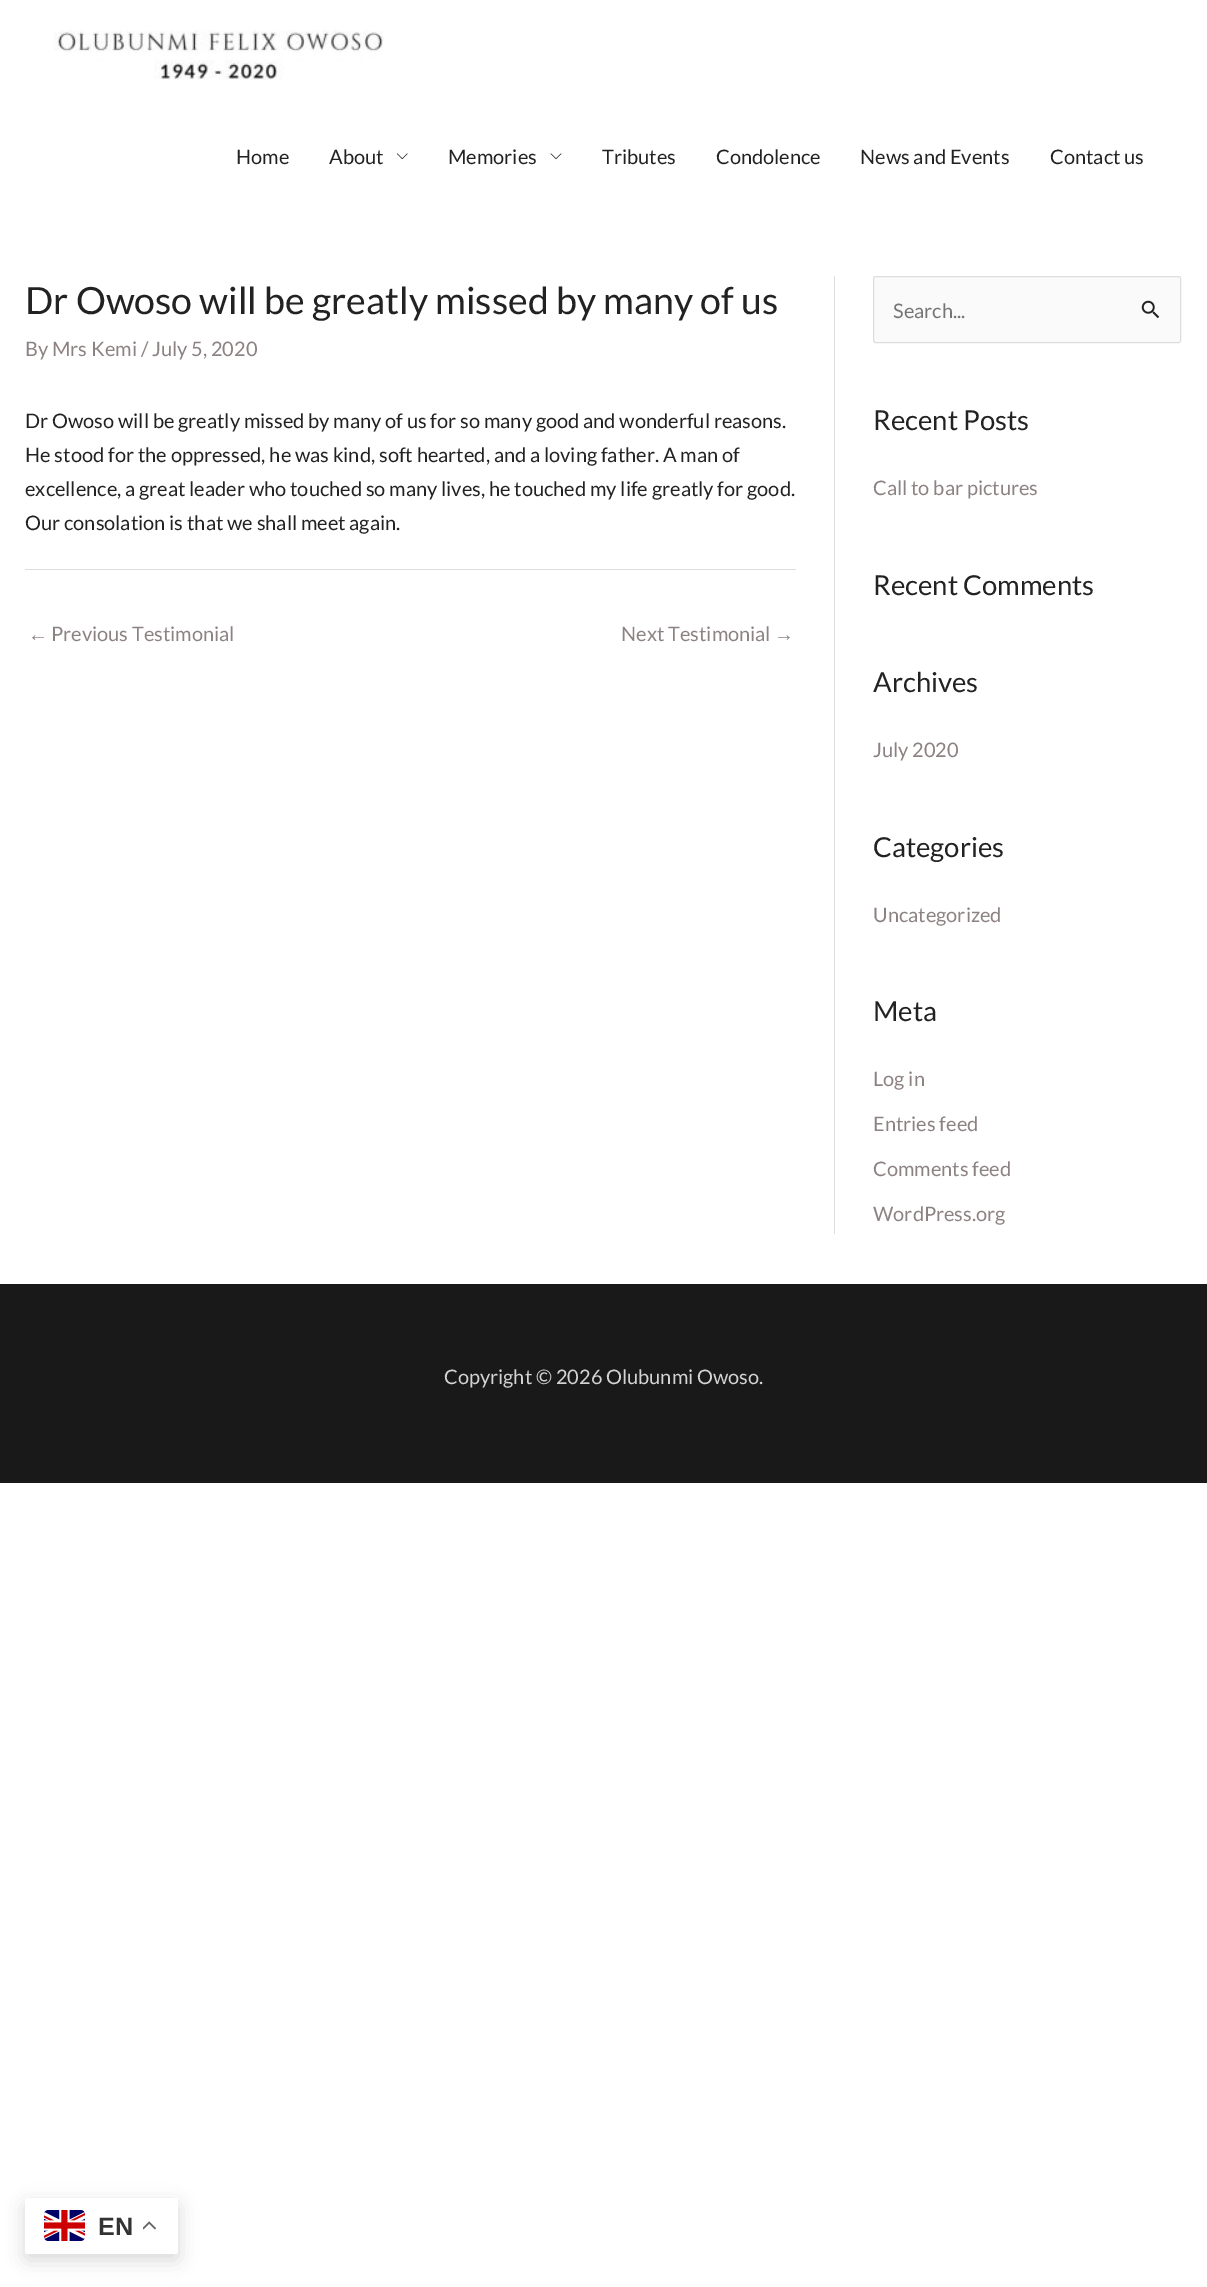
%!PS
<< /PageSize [1207 2287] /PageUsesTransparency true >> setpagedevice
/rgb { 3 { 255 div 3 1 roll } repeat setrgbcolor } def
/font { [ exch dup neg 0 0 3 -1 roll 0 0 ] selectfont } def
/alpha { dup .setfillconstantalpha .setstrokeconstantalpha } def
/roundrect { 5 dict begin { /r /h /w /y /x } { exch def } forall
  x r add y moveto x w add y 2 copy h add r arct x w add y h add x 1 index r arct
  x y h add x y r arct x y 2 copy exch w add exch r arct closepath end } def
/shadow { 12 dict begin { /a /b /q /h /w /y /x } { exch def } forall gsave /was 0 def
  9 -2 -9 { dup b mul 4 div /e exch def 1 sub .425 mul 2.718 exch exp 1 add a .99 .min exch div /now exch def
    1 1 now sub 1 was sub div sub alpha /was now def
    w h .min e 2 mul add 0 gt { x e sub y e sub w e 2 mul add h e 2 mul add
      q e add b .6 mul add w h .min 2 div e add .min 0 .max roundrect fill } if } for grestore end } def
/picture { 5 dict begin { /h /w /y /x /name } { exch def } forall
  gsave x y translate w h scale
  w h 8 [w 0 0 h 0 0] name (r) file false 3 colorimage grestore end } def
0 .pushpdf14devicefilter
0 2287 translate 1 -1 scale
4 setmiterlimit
255 255 255 rgb
0 0 1207 2287 rectfill
(img/1.rgb) 54 30 330 50 picture
(img/2.rgb) 396 153 12 7 picture
(img/3.rgb) 550 153 12 7 picture
221 221 221 rgb
25 569 771 1 rectfill
834 276 1 958 rectfill
250 250 250 rgb
873.5 276.5 307 66 2 roundrect gsave fill grestore
221 221 221 rgb
stroke
(img/4.rgb) 1141 300 19 19 picture
25 25 25 rgb
0 1284 1207 199 rectfill
0 0 0 rgb
25 2204 153 56 2.5 9.5 0.15 shadow
255 255 255 rgb
25 2198 153 56 2.5 roundrect fill
(img/5.rgb) 44 2210 41 31 picture
(img/6.rgb) 143 2221 13 9 picture
/Lato-Regular 20 font
34 34 34 rgb
[
  [(Home) 236 164]
  [(About) 329 164]
  [(Memories) 448 164]
  [(Tributes) 602 164]
  [(Condolence) 716 164]
  [(News and Events) 860 164]
  [(Contact us) 1050 164]
] { aload pop moveto show } forall
/Lato-Regular 37.5 font
25 314 moveto (Dr Owoso will be greatly missed by many of us) show
/Lato-Regular 20 font
140 130 130 rgb
25 356 moveto (By Mrs Kemi / July 5, 2020) show
34 34 34 rgb
[
  [(Dr Owoso will be greatly missed by many of us for so many good and wonderful reasons.) 25 428]
  [(He stood for the oppressed, he was kind, soft hearted, and a loving father. A man of) 25 462]
  [(excellence, a great leader who touched so many lives, he touched my life greatly for good.) 25 496]
  [(Our consolation is that we shall meet again.) 25 530]
] { aload pop moveto show } forall
/LiberationSans-Regular 20 font
140 130 130 rgb
28 641 moveto (←) show
/Lato-Regular 20 font
51 641 moveto (Previous Testimonial) show
621 641 moveto (Next Testimonial) show
/LiberationSans-Regular 20 font
774 641 moveto (→) show
/Lato-Regular 20 font
117 117 117 rgb
893 318 moveto (Search...) show
/Lato-Regular 27.5 font
34 34 34 rgb
873 430 moveto (Recent Posts) show
/Lato-Regular 20 font
140 130 130 rgb
873 495 moveto (Call to bar pictures) show
/Lato-Regular 27.5 font
34 34 34 rgb
873 595 moveto (Recent Comments) show
873 692 moveto (Archives) show
/Lato-Regular 20 font
140 130 130 rgb
873 757 moveto (July 2020) show
/Lato-Regular 27.5 font
34 34 34 rgb
873 857 moveto (Categories) show
/Lato-Regular 20 font
140 130 130 rgb
873 922 moveto (Uncategorized) show
/Lato-Regular 27.5 font
34 34 34 rgb
873 1021 moveto (Meta) show
/Lato-Regular 20 font
140 130 130 rgb
[
  [(Log in) 873 1086]
  [(Entries feed) 873 1131]
  [(Comments feed) 873 1176]
  [(WordPress.org) 873 1221]
] { aload pop moveto show } forall
211 211 211 rgb
444 1384 moveto (Copyright © 2026 Olubunmi Owoso.) show
/LiberationSans-Bold 25 font
51 51 51 rgb
98 2235 moveto (EN) show
.poppdf14devicefilter showpage
